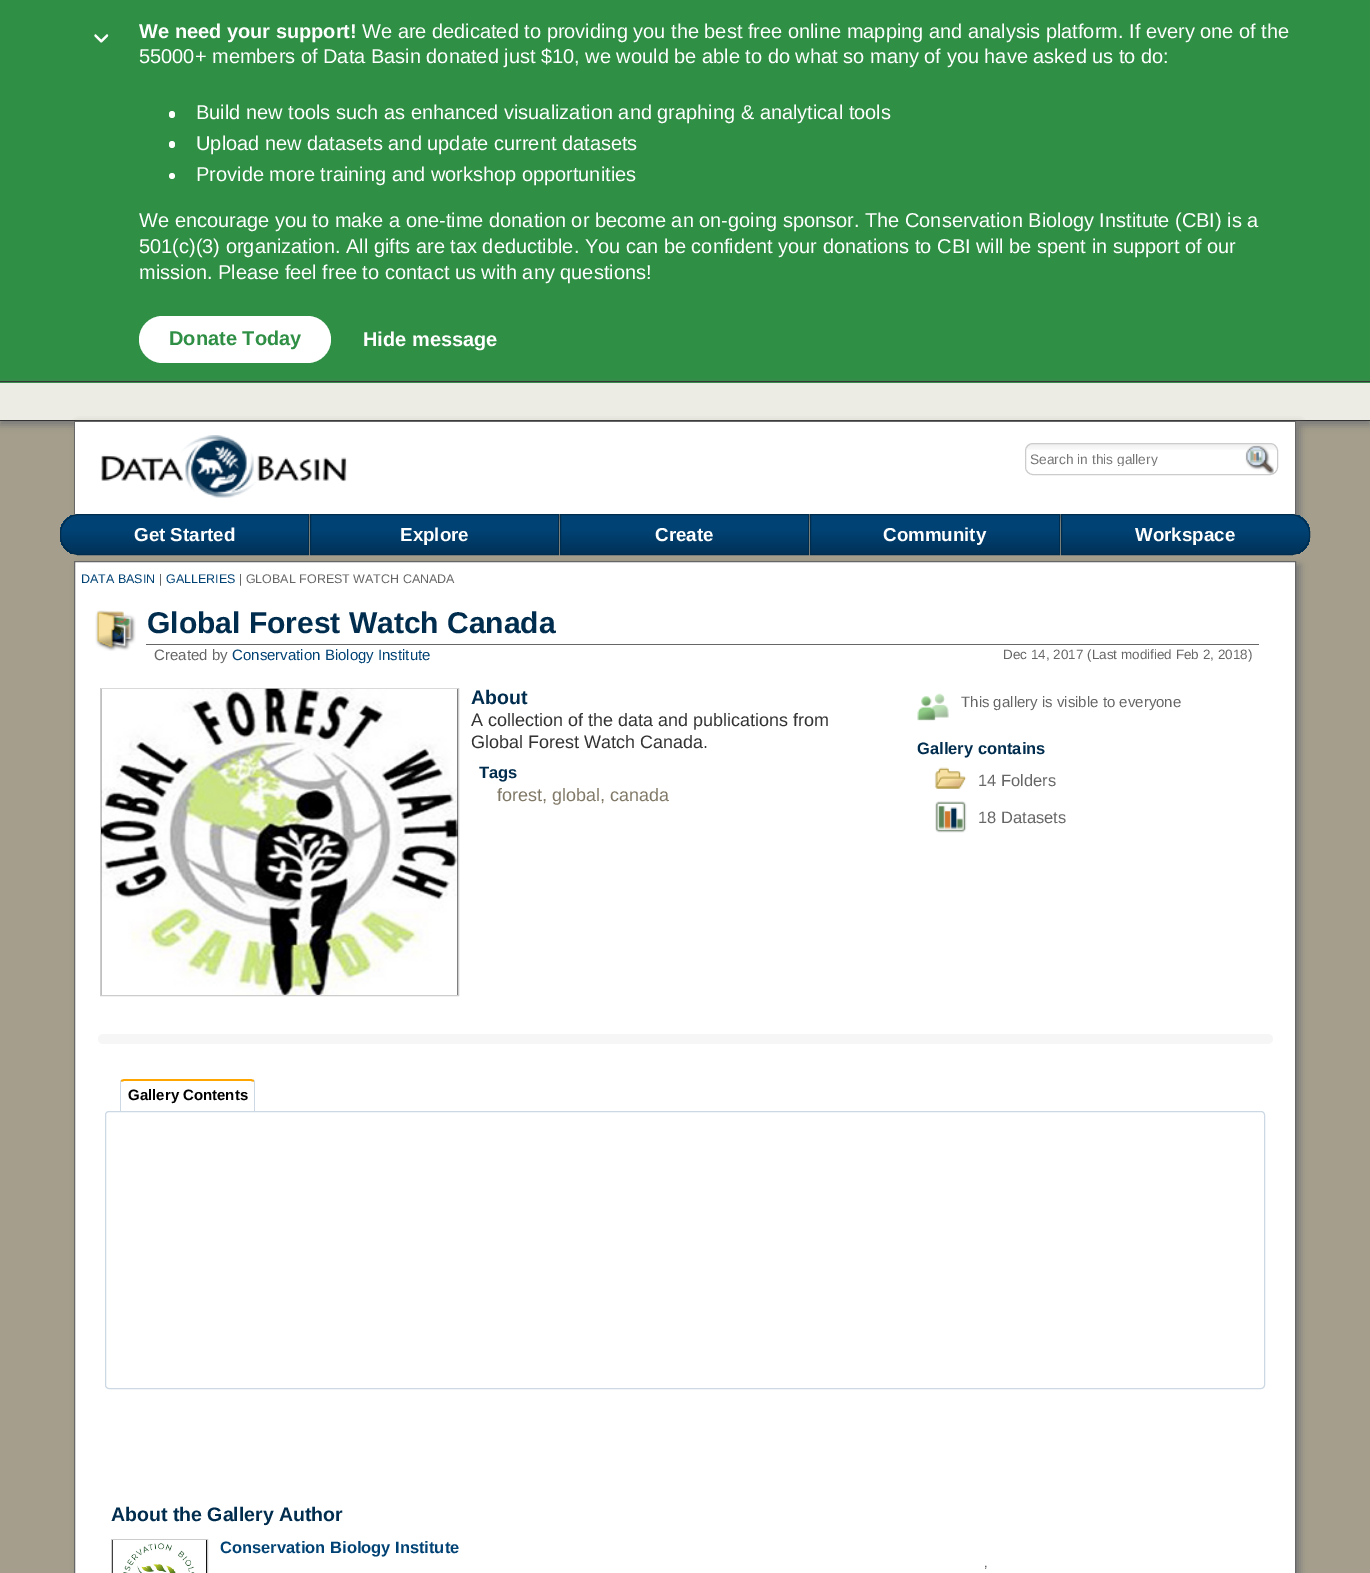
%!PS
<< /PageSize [1370 1573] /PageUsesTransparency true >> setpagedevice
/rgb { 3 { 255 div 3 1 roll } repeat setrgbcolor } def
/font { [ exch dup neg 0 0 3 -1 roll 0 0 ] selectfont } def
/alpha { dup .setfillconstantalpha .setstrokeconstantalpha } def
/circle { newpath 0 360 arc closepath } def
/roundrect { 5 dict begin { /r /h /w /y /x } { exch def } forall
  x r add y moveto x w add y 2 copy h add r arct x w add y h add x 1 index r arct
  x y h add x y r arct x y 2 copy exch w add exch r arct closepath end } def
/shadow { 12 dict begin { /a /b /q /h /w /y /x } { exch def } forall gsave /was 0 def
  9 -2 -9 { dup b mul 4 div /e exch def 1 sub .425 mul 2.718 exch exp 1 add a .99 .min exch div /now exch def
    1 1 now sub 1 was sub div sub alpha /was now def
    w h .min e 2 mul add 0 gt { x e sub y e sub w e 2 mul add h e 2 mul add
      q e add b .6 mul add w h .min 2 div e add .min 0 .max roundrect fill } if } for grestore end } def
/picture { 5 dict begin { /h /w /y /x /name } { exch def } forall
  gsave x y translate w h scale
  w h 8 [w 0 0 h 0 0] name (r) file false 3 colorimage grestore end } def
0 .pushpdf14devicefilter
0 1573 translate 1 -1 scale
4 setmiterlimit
165 158 141 rgb
0 0 1370 1573 rectfill
47 143 69 rgb
0 0 1370 383 rectfill
44 44 44 rgb
0 381 1370 1 rectfill
(img/1.rgb) 94 34 15 9 picture
255 255 255 rgb
169 111 6 7 3 roundrect fill
169 141 6 7 3 roundrect fill
172 176 3 circle fill
139 316 192 47 23.5 roundrect fill
119 119 119 rgb
0 386 1370 39 0 4 1 shadow
236 236 228 rgb
0 383 1370 37 rectfill
51 51 51 rgb
0 420 1370 1 rectfill
119 119 119 rgb
78 425 1222 93 0 4 1 shadow
[
  [75 422 1220 92 255 255 255]
  [74 421 1222 1 102 102 102]
  [1295 421 1 93 102 102 102]
  [74 421 1 93 102 102 102]
] { aload pop rgb rectfill } forall
(img/2.rgb) 101 435 246 63 picture
(img/3.rgb) 1025 443 252 7 picture
204 204 204 rgb
1025.5 443.5 252 31 7.5 roundrect stroke
(img/4.rgb) 1245 445 29 29 picture
119 119 119 rgb
78 565 1222 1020 0 4 1 shadow
gsave
79 514 moveto 309 514 lineto 309 555 lineto 79 555 lineto 68.5 555 60 546.5 60 536 curveto 60 533 lineto 60 522.5 68.5 514 79 514 curveto closepath clip newpath
gsave 60 515 moveto 308 515 lineto 308 554 lineto 60 554 lineto closepath clip newpath
<< /ShadingType 2 /ColorSpace /DeviceRGB /Coords [184 515 184 562] /Extend [true true] /Function << /FunctionType 3 /Domain [0 1] /Functions [<< /FunctionType 2 /Domain [0 1] /C0 [0 0.259 0.455] /C1 [0 0.259 0.455] /N 1 >> << /FunctionType 2 /Domain [0 1] /C0 [0 0.259 0.455] /C1 [0 0.176 0.306] /N 1 >>] /Bounds [0.33] /Encode [0 1 0 1] >> >> shfill grestore
grestore
0 45 78 rgb
79 514.5 moveto 308.5 514.5 lineto 308.5 554.5 lineto 79 554.5 lineto 69 554.5 60.5 546 60.5 536 curveto 60.5 533 lineto 60.5 523 69 514.5 79 514.5 curveto closepath stroke
gsave 311 515 moveto 558 515 lineto 558 554 lineto 311 554 lineto closepath clip newpath
<< /ShadingType 2 /ColorSpace /DeviceRGB /Coords [434 515 434 562] /Extend [true true] /Function << /FunctionType 3 /Domain [0 1] /Functions [<< /FunctionType 2 /Domain [0 1] /C0 [0 0.259 0.455] /C1 [0 0.259 0.455] /N 1 >> << /FunctionType 2 /Domain [0 1] /C0 [0 0.259 0.455] /C1 [0 0.176 0.306] /N 1 >>] /Bounds [0.33] /Encode [0 1 0 1] >> >> shfill grestore
310.5 514.5 248 40 rectstroke
gsave 561 515 moveto 808 515 lineto 808 554 lineto 561 554 lineto closepath clip newpath
<< /ShadingType 2 /ColorSpace /DeviceRGB /Coords [684 515 684 562] /Extend [true true] /Function << /FunctionType 3 /Domain [0 1] /Functions [<< /FunctionType 2 /Domain [0 1] /C0 [0 0.259 0.455] /C1 [0 0.259 0.455] /N 1 >> << /FunctionType 2 /Domain [0 1] /C0 [0 0.259 0.455] /C1 [0 0.176 0.306] /N 1 >>] /Bounds [0.33] /Encode [0 1 0 1] >> >> shfill grestore
560.5 514.5 248 40 rectstroke
gsave 811 515 moveto 1059 515 lineto 1059 554 lineto 811 554 lineto closepath clip newpath
<< /ShadingType 2 /ColorSpace /DeviceRGB /Coords [935 515 935 562] /Extend [true true] /Function << /FunctionType 3 /Domain [0 1] /Functions [<< /FunctionType 2 /Domain [0 1] /C0 [0 0.259 0.455] /C1 [0 0.259 0.455] /N 1 >> << /FunctionType 2 /Domain [0 1] /C0 [0 0.259 0.455] /C1 [0 0.176 0.306] /N 1 >>] /Bounds [0.33] /Encode [0 1 0 1] >> >> shfill grestore
810.5 514.5 249 40 rectstroke
gsave
1061 514 moveto 1291 514 lineto 1301.5 514 1310 522.5 1310 533 curveto 1310 536 lineto 1310 546.5 1301.5 555 1291 555 curveto 1061 555 lineto closepath clip newpath
gsave 1062 515 moveto 1310 515 lineto 1310 554 lineto 1062 554 lineto closepath clip newpath
<< /ShadingType 2 /ColorSpace /DeviceRGB /Coords [1186 515 1186 562] /Extend [true true] /Function << /FunctionType 3 /Domain [0 1] /Functions [<< /FunctionType 2 /Domain [0 1] /C0 [0 0.259 0.455] /C1 [0 0.259 0.455] /N 1 >> << /FunctionType 2 /Domain [0 1] /C0 [0 0.259 0.455] /C1 [0 0.176 0.306] /N 1 >>] /Bounds [0.33] /Encode [0 1 0 1] >> >> shfill grestore
grestore
1061.5 514.5 moveto 1291 514.5 lineto 1301 514.5 1309.5 523 1309.5 533 curveto 1309.5 536 lineto 1309.5 546 1301 554.5 1291 554.5 curveto 1061.5 554.5 lineto closepath stroke
255 255 255 rgb
74.5 561.5 moveto 1295.5 561.5 lineto 1295.5 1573.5 lineto 74.5 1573.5 lineto closepath gsave fill grestore
102 102 102 rgb
stroke
(img/5.rgb) 95 610 41 41 picture
146 644 1113 1 rectfill
0 0 0 rgb
100.5 688.5 moveto 458.5 688.5 lineto 458.5 995.5 lineto 100.5 995.5 lineto closepath gsave fill grestore
204 204 204 rgb
stroke
(img/6.rgb) 101 688 357 307 picture
(img/7.rgb) 917 693 32 28 picture
(img/8.rgb) 934 767 33 22 picture
(img/9.rgb) 935 801 32 32 picture
246 246 246 rgb
98 1034 1175 10 5 roundrect fill
255 165 0 rgb
124 1079 moveto 251 1079 lineto 254 1080 lineto 254 1082 lineto 251 1081 lineto 124 1081 lineto 121 1082 lineto 121 1080 lineto closepath fill
204 216 227 rgb
254.5 1080 moveto 254.5 1080.5 255 1081.5 255 1082 curveto 255 1111 lineto 254 1111 lineto 254 1082 lineto 253.5 1081.5 lineto closepath fill
120.5 1080 moveto 121.5 1081.5 lineto 121 1082 lineto 121 1111 lineto 120 1111 lineto 120 1082 lineto 120 1081.5 120.5 1080.5 120.5 1080 curveto closepath fill
105.5 1111.5 1159 277 3.5 roundrect stroke
0 0 0 rgb
111.5 1539.5 moveto 207.5 1539.5 lineto 207.5 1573.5 lineto 111.5 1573.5 lineto closepath gsave fill grestore
204 204 204 rgb
stroke
(img/10.rgb) 112 1540 95 33 picture
/LiberationSans-Bold 20 font
255 255 255 rgb
139 38 moveto (We need your support!) show
/LiberationSans-Regular 20 font
[
  [(We are dedicated to providing you the best free online mapping and analysis platform. If every one of the) 362 38]
  [(55000+ members of Data Basin donated just $10, we would be able to do what so many of you have asked us to do:) 139 63]
  [(Build new tools such as enhanced visualization and graphing & analytical tools) 196 119]
  [(Upload new datasets and update current datasets) 196 150]
  [(Provide more training and workshop opportunities) 196 181]
  [(We encourage you to make a one-time donation or become an on-going sponsor. The Conservation Biology Institute \(CBI\) is a) 139 227]
  [(501\(c\)\(3\) organization. All gifts are tax deductible. You can be confident your donations to CBI will be spent in support of our) 139 253]
  [(mission. Please feel free to contact us with any questions!) 139 279]
] { aload pop moveto show } forall
/LiberationSans-Bold 20 font
47 143 69 rgb
169 345 moveto (Donate Today) show
255 255 255 rgb
363 346 moveto (Hide message) show
gsave
1030 451 210 15 rectclip
/LiberationSans-Regular 13.75 font
117 117 117 rgb
1030 464 moveto (Search in this gallery) show
grestore
/LiberationSans-Bold 18.75 font
[
  [(Get Started) 134 541]
  [(Explore) 400 541]
  [(Create) 655 541]
  [(Community) 883 541]
  [(Workspace) 1135 541]
] { aload pop moveto show } forall
/LiberationSans-Regular 12.5 font
0 66 116 rgb
81 583 moveto (DATA BASIN) show
102 102 102 rgb
159 583 moveto (|) show
0 66 116 rgb
166 583 moveto (GALLERIES) show
102 102 102 rgb
239 583 moveto (| GLOBAL FOREST WATCH CANADA) show
/LiberationSans-Bold 30 font
0 45 78 rgb
147 633 moveto (Global Forest Watch Canada) show
/LiberationSans-Regular 15 font
102 102 102 rgb
154 660 moveto (Created by) show
0 66 116 rgb
232 660 moveto (Conservation Biology Institute) show
/LiberationSans-Regular 13.5 font
102 102 102 rgb
1003 659 moveto (Dec 14, 2017 \(Last modified Feb 2, 2018\)) show
/LiberationSans-Bold 19.5 font
0 45 78 rgb
471 704 moveto (About) show
/LiberationSans-Regular 18 font
51 51 51 rgb
471 726 moveto (A collection of the data and publications from) show
471 748 moveto (Global Forest Watch Canada.) show
/LiberationSans-Bold 16.5 font
0 45 78 rgb
479 778 moveto (Tags) show
/LiberationSans-Regular 18 font
129 121 104 rgb
497 801 moveto (forest, global, canada) show
/LiberationSans-Regular 15 font
102 102 102 rgb
961 707 moveto (This gallery is visible to everyone) show
/LiberationSans-Bold 16.5 font
0 45 78 rgb
917 754 moveto (Gallery contains) show
/LiberationSans-Regular 16.5 font
102 102 102 rgb
978 786 moveto (14 Folders) show
978 823 moveto (18 Datasets) show
/LiberationSans-Bold 15 font
0 0 0 rgb
128 1100 moveto (Gallery Contents) show
/LiberationSans-Bold 19.5 font
0 45 78 rgb
111 1521 moveto (About the Gallery Author) show
/LiberationSans-Bold 16.5 font
0 66 116 rgb
220 1553 moveto (Conservation Biology Institute) show
/LiberationSans-Regular 15 font
102 102 102 rgb
984 1576 moveto (’) show
.poppdf14devicefilter showpage
